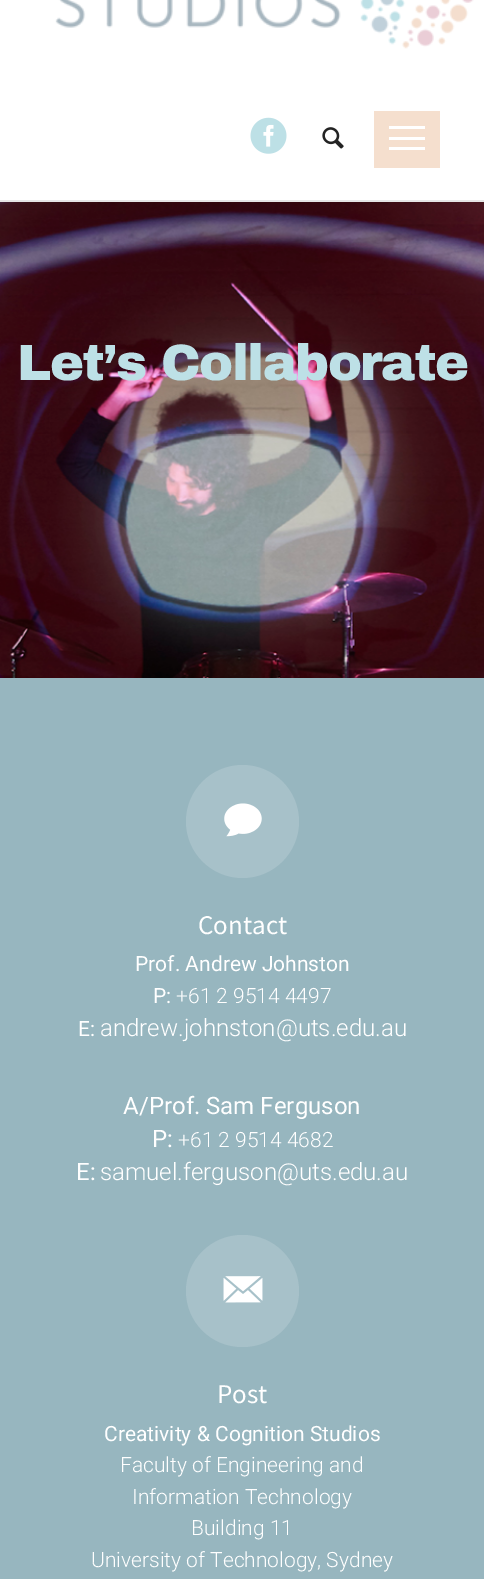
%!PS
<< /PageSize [484 1579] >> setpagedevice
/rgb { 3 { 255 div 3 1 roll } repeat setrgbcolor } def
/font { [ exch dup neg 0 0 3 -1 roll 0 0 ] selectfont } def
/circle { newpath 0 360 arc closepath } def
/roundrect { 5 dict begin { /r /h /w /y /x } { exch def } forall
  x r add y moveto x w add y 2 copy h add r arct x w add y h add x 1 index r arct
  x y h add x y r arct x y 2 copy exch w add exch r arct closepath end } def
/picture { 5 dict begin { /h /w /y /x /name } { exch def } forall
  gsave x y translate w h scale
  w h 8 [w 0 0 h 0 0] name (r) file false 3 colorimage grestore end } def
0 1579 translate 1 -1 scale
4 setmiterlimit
255 255 255 rgb
0 0 484 1579 rectfill
(img/1.rgb) 55 0 419 49 picture
(img/2.rgb) 250 117 37 37 picture
(img/3.rgb) 322 127 22 22 picture
[
  [374 111 66 57 245 223 206]
  [389 126 36 3 255 255 255]
  [389 137 36 3 255 255 255]
  [389 147 36 3 255 255 255]
  [0 200 484 2 230 230 230]
] { aload pop rgb rectfill } forall
(img/4.rgb) 0 202 484 476 picture
151 182 191 rgb
0 678 484 901 rectfill
167 193 201 rgb
242.5 821.5 56.5 circle fill
(img/5.rgb) 224 803 38 34 picture
186 1235 113 112 56 roundrect fill
(img/6.rgb) 223 1276 40 27 picture
/ArchivoBlack-Black 51 font
189 224 230 rgb
17 380 moveto -1.5 0 (Let’s Collaborate) ashow
/SourceSansPro-Regular 27 font
255 255 255 rgb
198 934 moveto (Contact) show
/Roboto-Regular 21 font
135 971 moveto (Prof. Andrew Johnston) show
153 1003 moveto (P:) show
/Roboto-Light 21 font
176 1003 moveto (+61 2 9514 4497) show
/Roboto-Regular 21 font
78 1036 moveto (E:) show
/Roboto-Light 24 font
100 1036 moveto (andrew.johnston@uts.edu.au) show
/Roboto-Regular 24 font
123 1114 moveto (A/Prof. Sam Ferguson) show
152 1147 moveto (P:) show
/Roboto-Light 21 font
178 1147 moveto (+61 2 9514 4682) show
/Roboto-Regular 24 font
76 1180 moveto (E:) show
/Roboto-Light 24 font
100 1180 moveto (samuel.ferguson@uts.edu.au) show
/SourceSansPro-Regular 27 font
217 1403 moveto (Post) show
/Roboto-Regular 21 font
104 1441 moveto (Creativity & Cognition Studios) show
/Roboto-Light 21 font
[
  [(Faculty of Engineering and) 120 1472]
  [(Information Technology) 132 1504]
  [(Building 11) 191 1535]
  [(University of Technology, Sydney) 91 1567]
] { aload pop moveto show } forall
showpage
